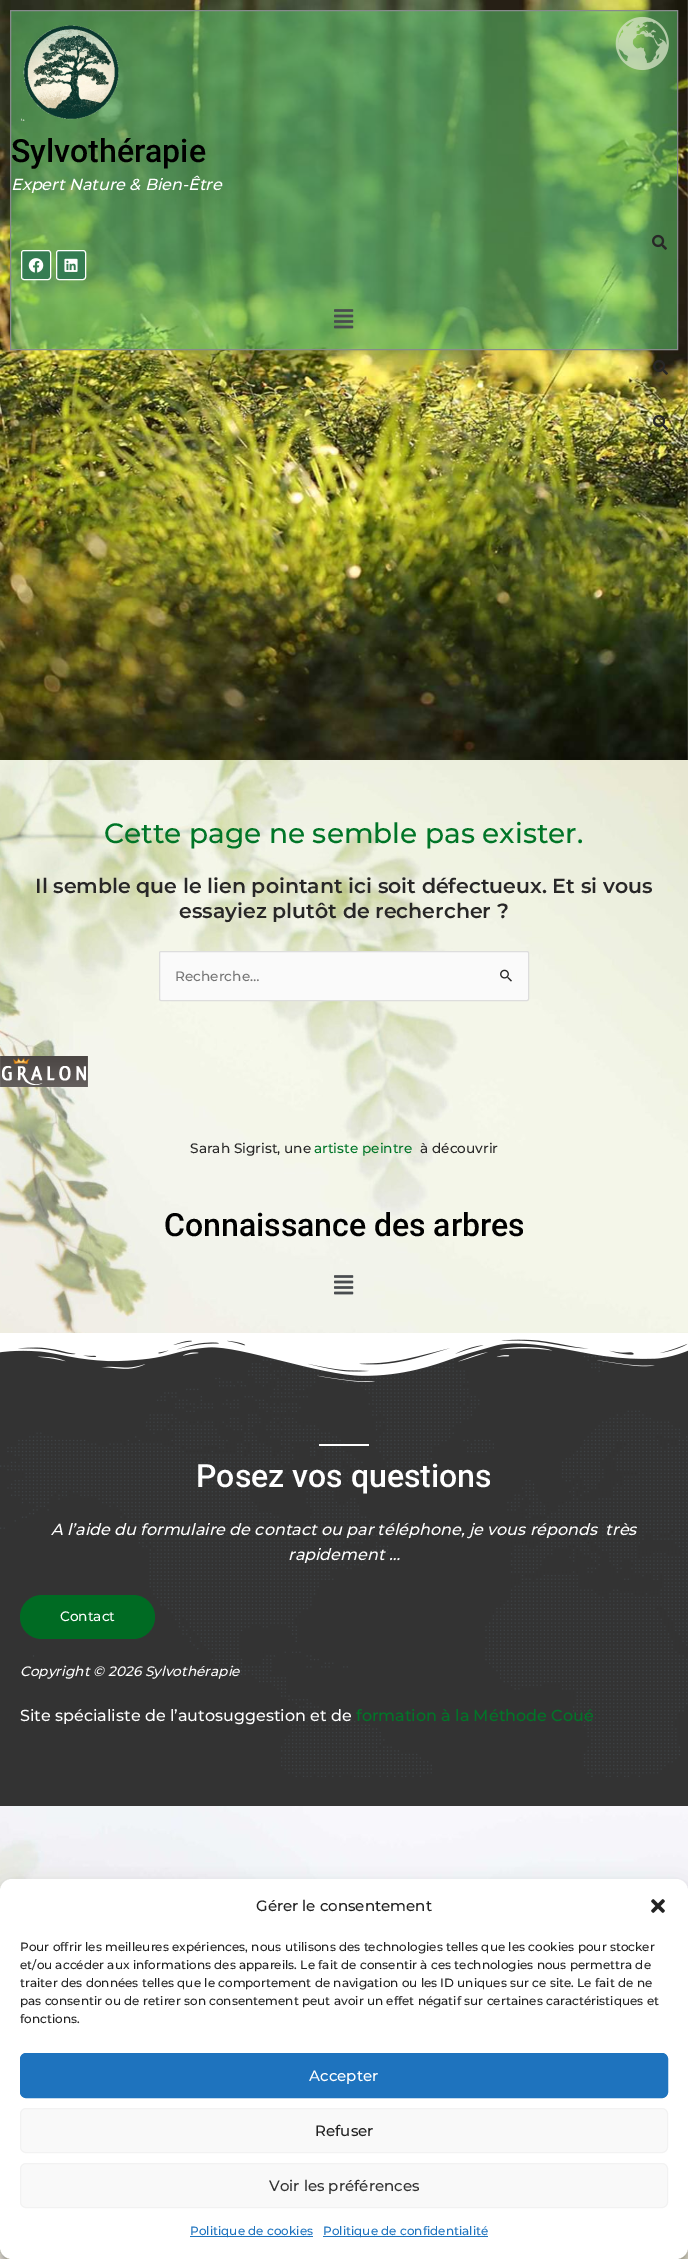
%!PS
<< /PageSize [688 2259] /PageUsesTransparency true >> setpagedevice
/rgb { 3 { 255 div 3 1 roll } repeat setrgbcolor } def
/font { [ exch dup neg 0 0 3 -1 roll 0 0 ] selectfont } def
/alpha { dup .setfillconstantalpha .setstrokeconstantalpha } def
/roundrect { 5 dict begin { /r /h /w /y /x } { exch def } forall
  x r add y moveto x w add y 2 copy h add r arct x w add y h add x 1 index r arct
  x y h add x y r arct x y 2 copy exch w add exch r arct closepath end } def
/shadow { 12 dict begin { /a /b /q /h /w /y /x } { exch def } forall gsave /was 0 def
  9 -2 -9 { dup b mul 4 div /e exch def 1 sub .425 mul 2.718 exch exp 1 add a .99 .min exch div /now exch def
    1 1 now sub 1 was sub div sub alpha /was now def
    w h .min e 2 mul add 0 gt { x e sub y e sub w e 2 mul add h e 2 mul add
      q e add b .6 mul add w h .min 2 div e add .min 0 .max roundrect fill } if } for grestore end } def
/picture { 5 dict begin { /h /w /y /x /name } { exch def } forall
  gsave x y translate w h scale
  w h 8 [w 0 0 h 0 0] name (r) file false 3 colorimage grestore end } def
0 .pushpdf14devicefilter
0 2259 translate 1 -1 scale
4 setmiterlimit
255 255 255 rgb
0 0 688 2259 rectfill
(img/1.rgb) 0 0 688 2259 picture
(img/3.rgb) 0 0 688 760 picture
0.52 alpha
97 206 112 rgb
10.5 10.5 moveto 677.5 10.5 lineto 677.5 349.5 lineto 10.5 349.5 lineto closepath fill
1 alpha
135 138 141 rgb
10.5 10.5 moveto 677.5 10.5 lineto 677.5 349.5 lineto 10.5 349.5 lineto closepath stroke
(img/2.rgb) 615 16 54 55 picture
(img/4.rgb) 21 25 98 96 picture
(img/5.rgb) 652 234 15 16 picture
53 124 82 rgb
21.5 250.5 29 29 2.5 roundrect gsave fill grestore
255 255 255 rgb
stroke
(img/6.rgb) 28 258 16 15 picture
53 124 82 rgb
56.5 250.5 29 29 2.5 roundrect gsave fill grestore
255 255 255 rgb
stroke
(img/7.rgb) 64 258 14 14 picture
(img/8.rgb) 334 309 20 20 picture
(img/9.rgb) 653 360 15 15 picture
(img/10.rgb) 653 414 15 16 picture
250 250 250 rgb
159.5 951.5 369 49 1.5 roundrect gsave fill grestore
221 221 221 rgb
stroke
(img/11.rgb) 500 969 12 13 picture
(img/12.rgb) 0 1056 88 31 picture
(img/13.rgb) 334 1275 20 20 picture
51 51 51 rgb
0 1339 688 467 rectfill
(img/15.rgb) 0 1348 688 429 picture
(img/14.rgb) 0 1333 688 49 picture
255 255 255 rgb
319 1444 50 2 rectfill
0 107 35 rgb
20 1595 135 44 22 roundrect fill
0 0 0 rgb
0 1885 688 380 12 3 0.23 shadow
0 1889 688 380 12 10 0.19 shadow
255 255 255 rgb
0 1879 688 380 12 roundrect fill
(img/16.rgb) 651 1899 14 14 picture
30 115 190 rgb
20.5 2053.5 647 44 5.5 roundrect gsave fill grestore
stroke
249 249 249 rgb
20.5 2108.5 647 44 5.5 roundrect gsave fill grestore
242 242 242 rgb
stroke
249 249 249 rgb
20.5 2163.5 647 44 5.5 roundrect gsave fill grestore
242 242 242 rgb
stroke
30 115 190 rgb
190 2236 123 1 rectfill
323 2236 165 1 rectfill
/Roboto-Medium 32 font
0 0 0 rgb
11 162 moveto (Sylvothérapie) show
/Montserrat-MediumItalic 16 font
255 255 255 rgb
11 190 moveto (Expert Nature & Bien-Être) show
/Montserrat-Medium 28 font
0 117 39 rgb
104 843 moveto (Cette page ne semble pas exister.) show
/Montserrat-SemiBold 20.5 font
40 39 39 rgb
35 893 moveto (Il semble que le lien pointant ici soit défectueux. Et si vous) show
179 918 moveto (essayiez plutôt de rechercher ?) show
/Montserrat-Medium 13.7 font
117 117 117 rgb
175 981 moveto (Recherche…) show
40 39 39 rgb
190 1153 moveto (Sarah Sigrist, une) show
0 117 39 rgb
314 1153 moveto (artiste peintre) show
40 39 39 rgb
420 1153 moveto (à découvrir) show
/Roboto-Medium 32 font
0 0 0 rgb
164 1236 moveto (Connaissance des arbres) show
255 255 255 rgb
196 1487 moveto (Posez vos questions) show
/Montserrat-MediumItalic 16 font
51 1535 moveto (A l’aide du formulaire de contact ou par téléphone, je vous réponds  très) show
288 1560 moveto (rapidement …) show
/Montserrat-Medium 13.7 font
60 1621 moveto (Contact) show
/Montserrat-MediumItalic 13.7 font
20 1676 moveto (Copyright © 2026 Sylvothérapie) show
/Montserrat-Medium 16 font
20 1721 moveto (Site spécialiste de l’autosuggestion et de) show
0 117 39 rgb
356 1721 moveto (formation à la Méthode Coué) show
/Montserrat-Medium 15 font
34 34 34 rgb
256 1911 moveto (Gérer le consentement) show
/Montserrat-Medium 12 font
[
  [(Pour offrir les meilleures expériences, nous utilisons des technologies telles que les cookies pour stocker) 20 1951]
  [(et/ou accéder aux informations des appareils. Le fait de consentir à ces technologies nous permettra de) 20 1969]
  [(traiter des données telles que le comportement de navigation ou les ID uniques sur ce site. Le fait de ne) 20 1987]
  [(pas consentir ou de retirer son consentement peut avoir un effet négatif sur certaines caractéristiques et) 20 2005]
  [(fonctions.) 20 2023]
] { aload pop moveto show } forall
/Montserrat-Medium 15 font
255 255 255 rgb
309 2081 moveto (Accepter) show
34 34 34 rgb
315 2136 moveto (Refuser) show
51 51 51 rgb
269 2191 moveto (Voir les préférences) show
/Montserrat-Medium 12 font
30 115 190 rgb
190 2235 moveto (Politique de cookies) show
323 2235 moveto (Politique de confidentialité) show
.poppdf14devicefilter showpage
